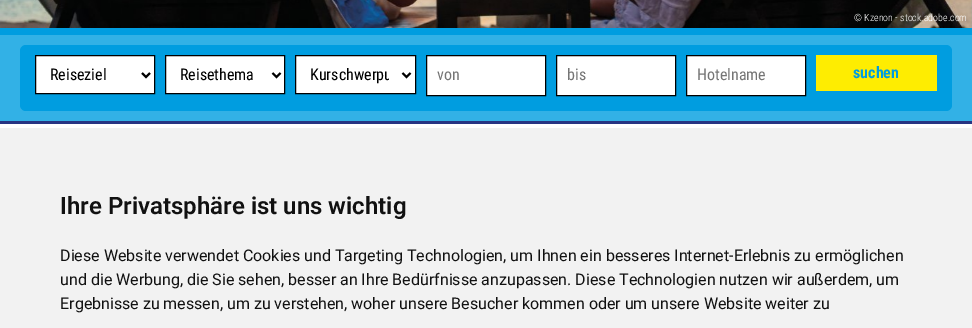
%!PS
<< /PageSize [972 328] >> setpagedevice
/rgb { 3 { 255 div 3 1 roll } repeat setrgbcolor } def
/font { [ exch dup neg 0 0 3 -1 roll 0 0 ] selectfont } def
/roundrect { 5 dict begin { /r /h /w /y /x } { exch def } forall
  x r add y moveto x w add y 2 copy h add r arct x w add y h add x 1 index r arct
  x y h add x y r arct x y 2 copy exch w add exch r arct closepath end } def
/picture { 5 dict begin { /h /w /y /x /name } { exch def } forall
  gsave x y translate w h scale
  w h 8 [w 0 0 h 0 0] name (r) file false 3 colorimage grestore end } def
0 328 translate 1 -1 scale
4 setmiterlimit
255 255 255 rgb
0 0 972 328 rectfill
[
  [0 0 972 121 50 177 230]
  [0 121 972 3 39 52 130]
  [0 28 972 7 0 157 224]
] { aload pop rgb rectfill } forall
(img/1.rgb) 0 0 972 28 picture
20 45 932 66 6 roundrect fill
255 255 255 rgb
35.5 55.5 moveto 154.5 55.5 lineto 154.5 93.5 lineto 35.5 93.5 lineto closepath gsave fill grestore
0 0 0 rgb
stroke
2 setlinewidth
142 73 moveto 146 77 lineto 150 73 lineto stroke
255 255 255 rgb
165.5 55.5 moveto 284.5 55.5 lineto 284.5 93.5 lineto 165.5 93.5 lineto closepath gsave fill grestore
0 0 0 rgb
1 setlinewidth
stroke
2 setlinewidth
272.5 73 moveto 276.5 77 lineto 280.5 73 lineto stroke
255 255 255 rgb
295.5 55.5 moveto 415.5 55.5 lineto 415.5 93.5 lineto 295.5 93.5 lineto closepath gsave fill grestore
0 0 0 rgb
1 setlinewidth
stroke
2 setlinewidth
402.5 73 moveto 406.5 77 lineto 410.5 73 lineto stroke
255 255 255 rgb
426.5 55.5 moveto 545.5 55.5 lineto 545.5 95.5 lineto 426.5 95.5 lineto closepath gsave fill grestore
0 0 0 rgb
1 setlinewidth
stroke
255 255 255 rgb
556.5 55.5 moveto 675.5 55.5 lineto 675.5 95.5 lineto 556.5 95.5 lineto closepath gsave fill grestore
0 0 0 rgb
stroke
255 255 255 rgb
686.5 55.5 moveto 805.5 55.5 lineto 805.5 95.5 lineto 686.5 95.5 lineto closepath gsave fill grestore
0 0 0 rgb
stroke
254 237 1 rgb
816 55 121 36 rectfill
242 242 242 rgb
0 128 972 200 rectfill
/RobotoCondensed-Light 10 font
255 255 255 rgb
854 21 moveto (© Kzenon - stock.adobe.com) show
/RobotoCondensed-Regular 16 font
0 0 0 rgb
50 80 moveto (Reiseziel) show
180 80 moveto (Reisethema) show
gsave
310 64 79 21 rectclip
310 80 moveto (Kurschwerpu) show
grestore
117 117 117 rgb
[
  [(von) 437 80]
  [(bis) 567 80]
  [(Hotelname) 697 80]
] { aload pop moveto show } forall
/RobotoCondensed-Bold 16 font
0 157 224 rgb
853 78 moveto (suchen) show
/Roboto-SemiBold 24 font
17 17 17 rgb
60 214 moveto (Ihre Privatsphäre ist uns wichtig) show
/Roboto-Regular 16 font
[
  [(Diese Website verwendet Cookies und Targeting Technologien, um Ihnen ein besseres Internet-Erlebnis zu ermöglichen) 60 261]
  [(und die Werbung, die Sie sehen, besser an Ihre Bedürfnisse anzupassen. Diese Technologien nutzen wir außerdem, um) 60 285]
  [(Ergebnisse zu messen, um zu verstehen, woher unsere Besucher kommen oder um unsere Website weiter zu) 60 309]
] { aload pop moveto show } forall
showpage
